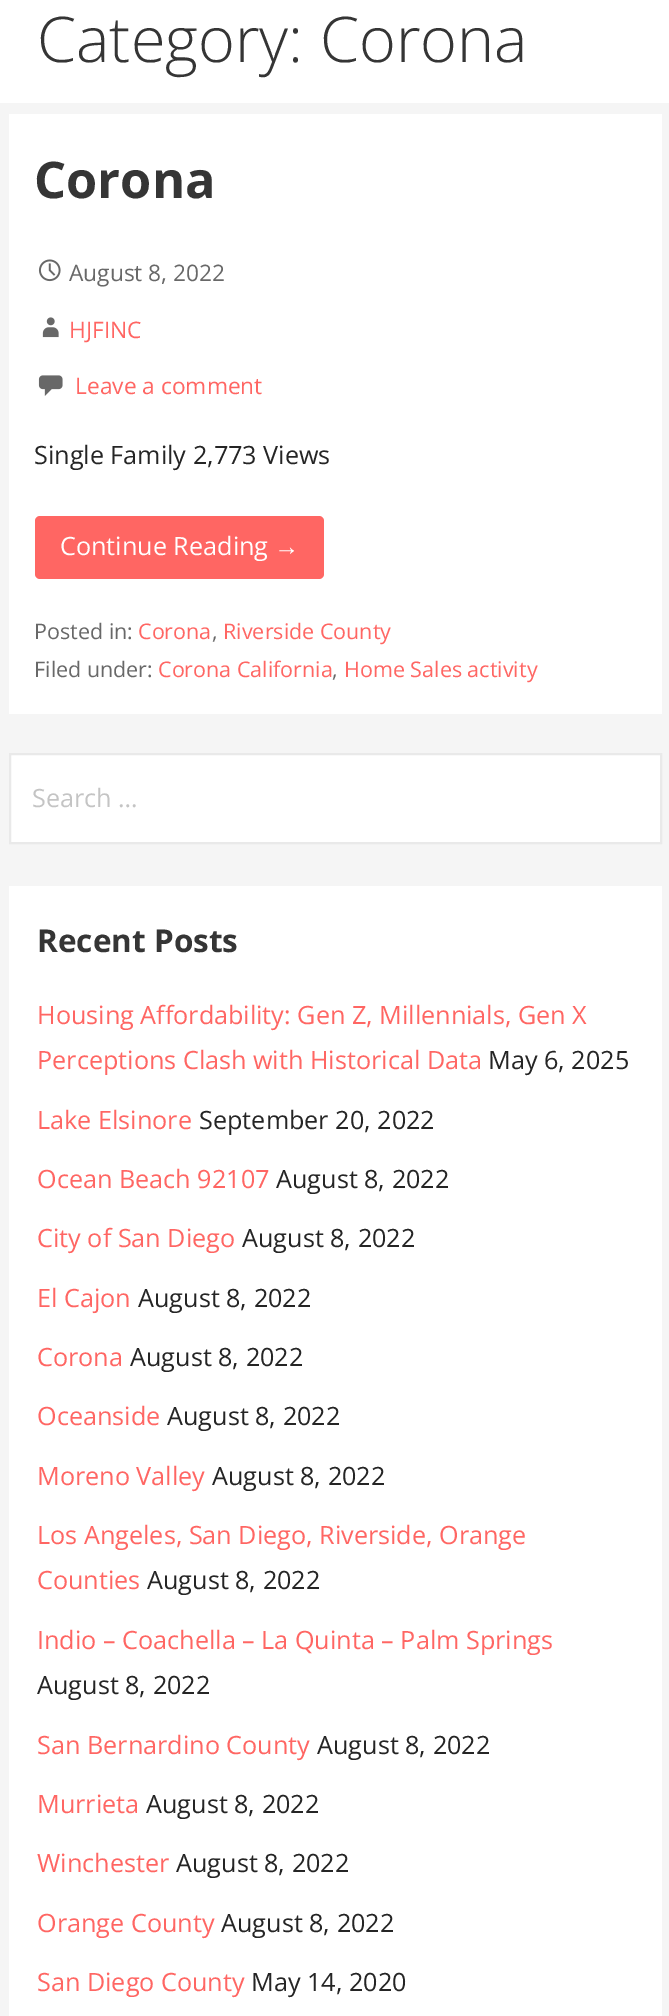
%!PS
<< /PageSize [669 2016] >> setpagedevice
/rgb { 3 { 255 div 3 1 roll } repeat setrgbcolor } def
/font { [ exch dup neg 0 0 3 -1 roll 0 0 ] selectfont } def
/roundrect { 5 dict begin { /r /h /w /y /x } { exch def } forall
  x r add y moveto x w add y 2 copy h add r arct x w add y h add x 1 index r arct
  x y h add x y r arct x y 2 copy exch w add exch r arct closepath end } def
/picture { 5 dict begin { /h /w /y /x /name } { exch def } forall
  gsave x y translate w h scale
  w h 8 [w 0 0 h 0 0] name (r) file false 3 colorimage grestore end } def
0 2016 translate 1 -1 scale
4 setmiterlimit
245 245 245 rgb
0 0 669 2016 rectfill
255 255 255 rgb
0 0 669 103 rectfill
9 114 653 600 rectfill
(img/1.rgb) 38 259 23 23 picture
(img/2.rgb) 42 317 17 21 picture
(img/3.rgb) 38 375 25 21 picture
255 102 99 rgb
35 516 289 63 5 roundrect fill
255 255 255 rgb
10 754 moveto 661 754 lineto 661 843 lineto 10 843 lineto closepath gsave fill grestore
233 233 233 rgb
2 setlinewidth
stroke
255 255 255 rgb
9 886 653 1130 rectfill
/OpenSans-Light 63 font
53 53 53 rgb
37 62 moveto (Category: Corona) show
/OpenSans-Bold 50.5 font
34 198 moveto (Corona) show
/OpenSans-Regular 22.75 font
104 104 104 rgb
69 281 moveto (August 8, 2022) show
255 102 99 rgb
69 338 moveto (HJFINC) show
75 394 moveto (Leave a comment) show
/OpenSans-Regular 25.2 font
37 37 37 rgb
34 464 moveto (Single Family 2,773 Views) show
255 255 255 rgb
60 555 moveto (Continue Reading) show
/LiberationSans-Regular 25.2 font
274 555 moveto (→) show
/OpenSans-Regular 21.5 font
104 104 104 rgb
34 639 moveto (Posted in:) show
255 102 99 rgb
138 639 moveto (Corona) show
104 104 104 rgb
212 639 moveto (,) show
255 102 99 rgb
223 639 moveto (Riverside County) show
104 104 104 rgb
34 677 moveto (Filed under:) show
255 102 99 rgb
158 677 moveto (Corona California) show
104 104 104 rgb
332 677 moveto (,) show
255 102 99 rgb
344 677 moveto (Home Sales activity) show
/OpenSans-Regular 25.2 font
196 196 196 rgb
32 807 moveto (Search …) show
/OpenSans-Bold 31.5 font
53 53 53 rgb
37 952 moveto (Recent Posts) show
/OpenSans-Regular 25.2 font
255 102 99 rgb
37 1024 moveto (Housing Affordability: Gen Z, Millennials, Gen X) show
37 1069 moveto (Perceptions Clash with Historical Data) show
37 37 37 rgb
488 1069 moveto (May 6, 2025) show
255 102 99 rgb
37 1129 moveto (Lake Elsinore) show
37 37 37 rgb
199 1129 moveto (September 20, 2022) show
255 102 99 rgb
37 1188 moveto (Ocean Beach 92107) show
37 37 37 rgb
276 1188 moveto (August 8, 2022) show
255 102 99 rgb
37 1247 moveto (City of San Diego) show
37 37 37 rgb
242 1247 moveto (August 8, 2022) show
255 102 99 rgb
37 1307 moveto (El Cajon) show
37 37 37 rgb
138 1307 moveto (August 8, 2022) show
255 102 99 rgb
37 1366 moveto (Corona) show
37 37 37 rgb
130 1366 moveto (August 8, 2022) show
255 102 99 rgb
37 1425 moveto (Oceanside) show
37 37 37 rgb
167 1425 moveto (August 8, 2022) show
255 102 99 rgb
37 1485 moveto (Moreno Valley) show
37 37 37 rgb
212 1485 moveto (August 8, 2022) show
255 102 99 rgb
37 1544 moveto (Los Angeles, San Diego, Riverside, Orange) show
37 1589 moveto (Counties) show
37 37 37 rgb
147 1589 moveto (August 8, 2022) show
255 102 99 rgb
37 1649 moveto (Indio – Coachella – La Quinta – Palm Springs) show
37 37 37 rgb
37 1694 moveto (August 8, 2022) show
255 102 99 rgb
37 1754 moveto (San Bernardino County) show
37 37 37 rgb
317 1754 moveto (August 8, 2022) show
255 102 99 rgb
37 1813 moveto (Murrieta) show
37 37 37 rgb
146 1813 moveto (August 8, 2022) show
255 102 99 rgb
37 1872 moveto (Winchester) show
37 37 37 rgb
176 1872 moveto (August 8, 2022) show
255 102 99 rgb
37 1932 moveto (Orange County) show
37 37 37 rgb
221 1932 moveto (August 8, 2022) show
255 102 99 rgb
37 1991 moveto (San Diego County) show
37 37 37 rgb
251 1991 moveto (May 14, 2020) show
showpage
